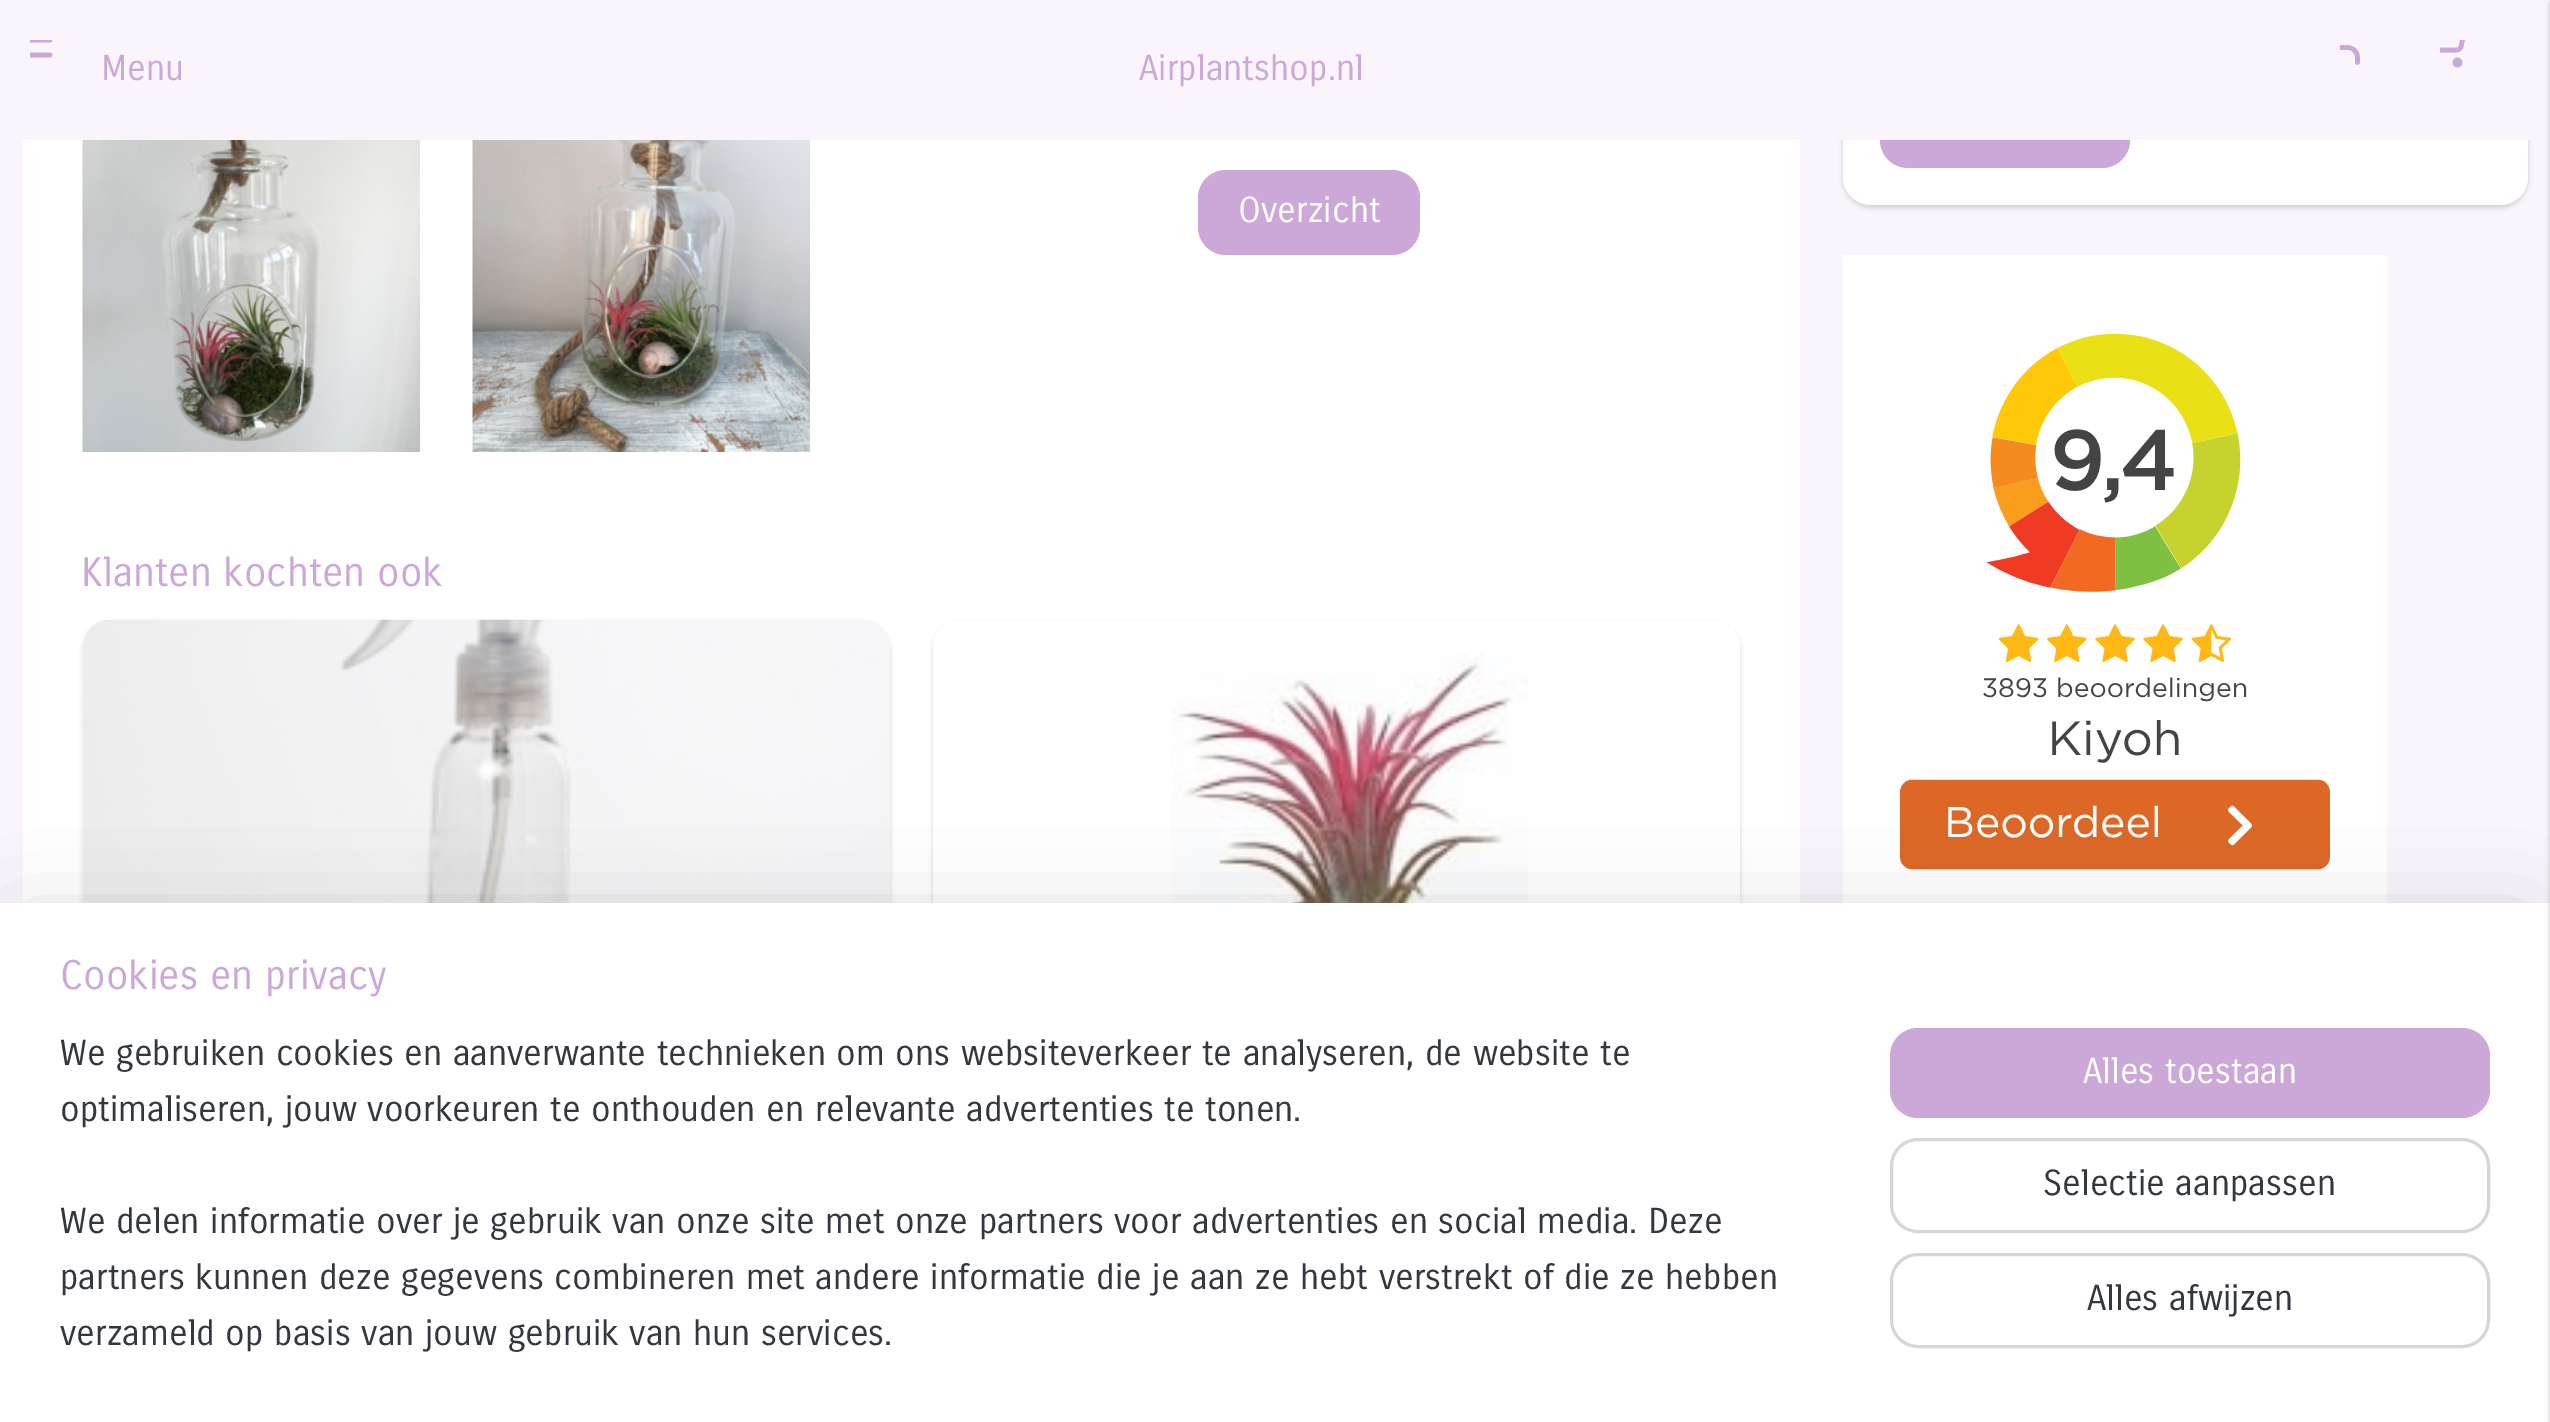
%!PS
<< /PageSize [2550 1422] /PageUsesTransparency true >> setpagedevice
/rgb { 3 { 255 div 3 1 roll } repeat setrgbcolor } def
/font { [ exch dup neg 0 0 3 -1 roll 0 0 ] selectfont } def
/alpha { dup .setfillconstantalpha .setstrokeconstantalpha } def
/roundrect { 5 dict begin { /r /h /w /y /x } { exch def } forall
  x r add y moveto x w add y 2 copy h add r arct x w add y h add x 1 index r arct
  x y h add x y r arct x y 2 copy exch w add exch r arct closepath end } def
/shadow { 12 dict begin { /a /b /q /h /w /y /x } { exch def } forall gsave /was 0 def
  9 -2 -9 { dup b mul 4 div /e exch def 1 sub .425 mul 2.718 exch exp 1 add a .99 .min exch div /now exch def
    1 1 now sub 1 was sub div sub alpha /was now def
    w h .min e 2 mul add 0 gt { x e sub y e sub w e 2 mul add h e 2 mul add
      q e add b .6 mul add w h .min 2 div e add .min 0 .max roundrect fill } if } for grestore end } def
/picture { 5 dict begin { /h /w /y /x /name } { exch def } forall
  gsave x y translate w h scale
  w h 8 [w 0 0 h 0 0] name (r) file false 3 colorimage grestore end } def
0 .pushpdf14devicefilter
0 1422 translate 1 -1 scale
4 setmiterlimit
250 244 252 rgb
0 0 2550 1422 rectfill
0 0 0 rgb
1843 -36 685 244 28 2.5 0.15 shadow
255 255 255 rgb
1843 -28 685 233 28 roundrect fill
204 168 216 rgb
1880 83 250 85 28 roundrect fill
250 244 252 rgb
1839 0 693 140 rectfill
(img/1.rgb) 30 40 23 18 picture
(img/2.rgb) 2340 45 20 20 picture
(img/3.rgb) 2440 40 25 28 picture
255 255 255 rgb
23 140 1777 763 rectfill
(img/4.rgb) 82 140 338 312 picture
(img/5.rgb) 472 140 338 312 picture
204 168 216 rgb
1198 170 222 85 28 roundrect fill
0 0 0 rgb
83 623 807 350 28 2.5 0.15 shadow
(img/6.rgb) 82 619 808 284 picture
933 623 807 350 28 2.5 0.15 shadow
255 255 255 rgb
961 620 moveto 1712 620 lineto 1727.5 620 1740 632.5 1740 648 curveto 1740 970 lineto 933 970 lineto 933 648 lineto 933 632.5 945.5 620 961 620 curveto closepath fill
(img/7.rgb) 1171 653 357 250 picture
(img/8.rgb) 1843 255 544 648 picture
0 0 0 rgb
25 928 2500 470 0 45 0.2 shadow
255 255 255 rgb
0 903 2550 519 rectfill
0 0 0 rgb
2550 3 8 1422 0 2.5 0.2 shadow
204 168 216 rgb
1890 1028 600 90 28 roundrect fill
214 214 214 rgb
3 setlinewidth
1891.5 1139.5 597 92 26.5 roundrect stroke
1891.5 1254.5 597 92 26.5 roundrect stroke
/CarroisGothic-Regular 35 font
204 168 216 rgb
101 80 moveto (Menu) show
1139 80 moveto (Airplantshop.nl) show
255 255 255 rgb
1238 222 moveto (Overzicht) show
/CarroisGothic-Regular 40 font
204 168 216 rgb
81 586 moveto (Klanten kochten ook) show
60 989 moveto (Cookies en privacy) show
/CarroisGothic-Regular 35 font
51 55 64 rgb
[
  [(We gebruiken cookies en aanverwante technieken om ons websiteverkeer te analyseren, de website te) 60 1065]
  [(optimaliseren, jouw voorkeuren te onthouden en relevante advertenties te tonen.) 60 1121]
  [(We delen informatie over je gebruik van onze site met onze partners voor advertenties en social media. Deze) 60 1233]
  [(partners kunnen deze gegevens combineren met andere informatie die je aan ze hebt verstrekt of die ze hebben) 60 1289]
  [(verzameld op basis van jouw gebruik van hun services.) 60 1345]
] { aload pop moveto show } forall
255 255 255 rgb
2083 1083 moveto (Alles toestaan) show
51 55 64 rgb
2043 1195 moveto (Selectie aanpassen) show
2087 1310 moveto (Alles afwijzen) show
.poppdf14devicefilter showpage
